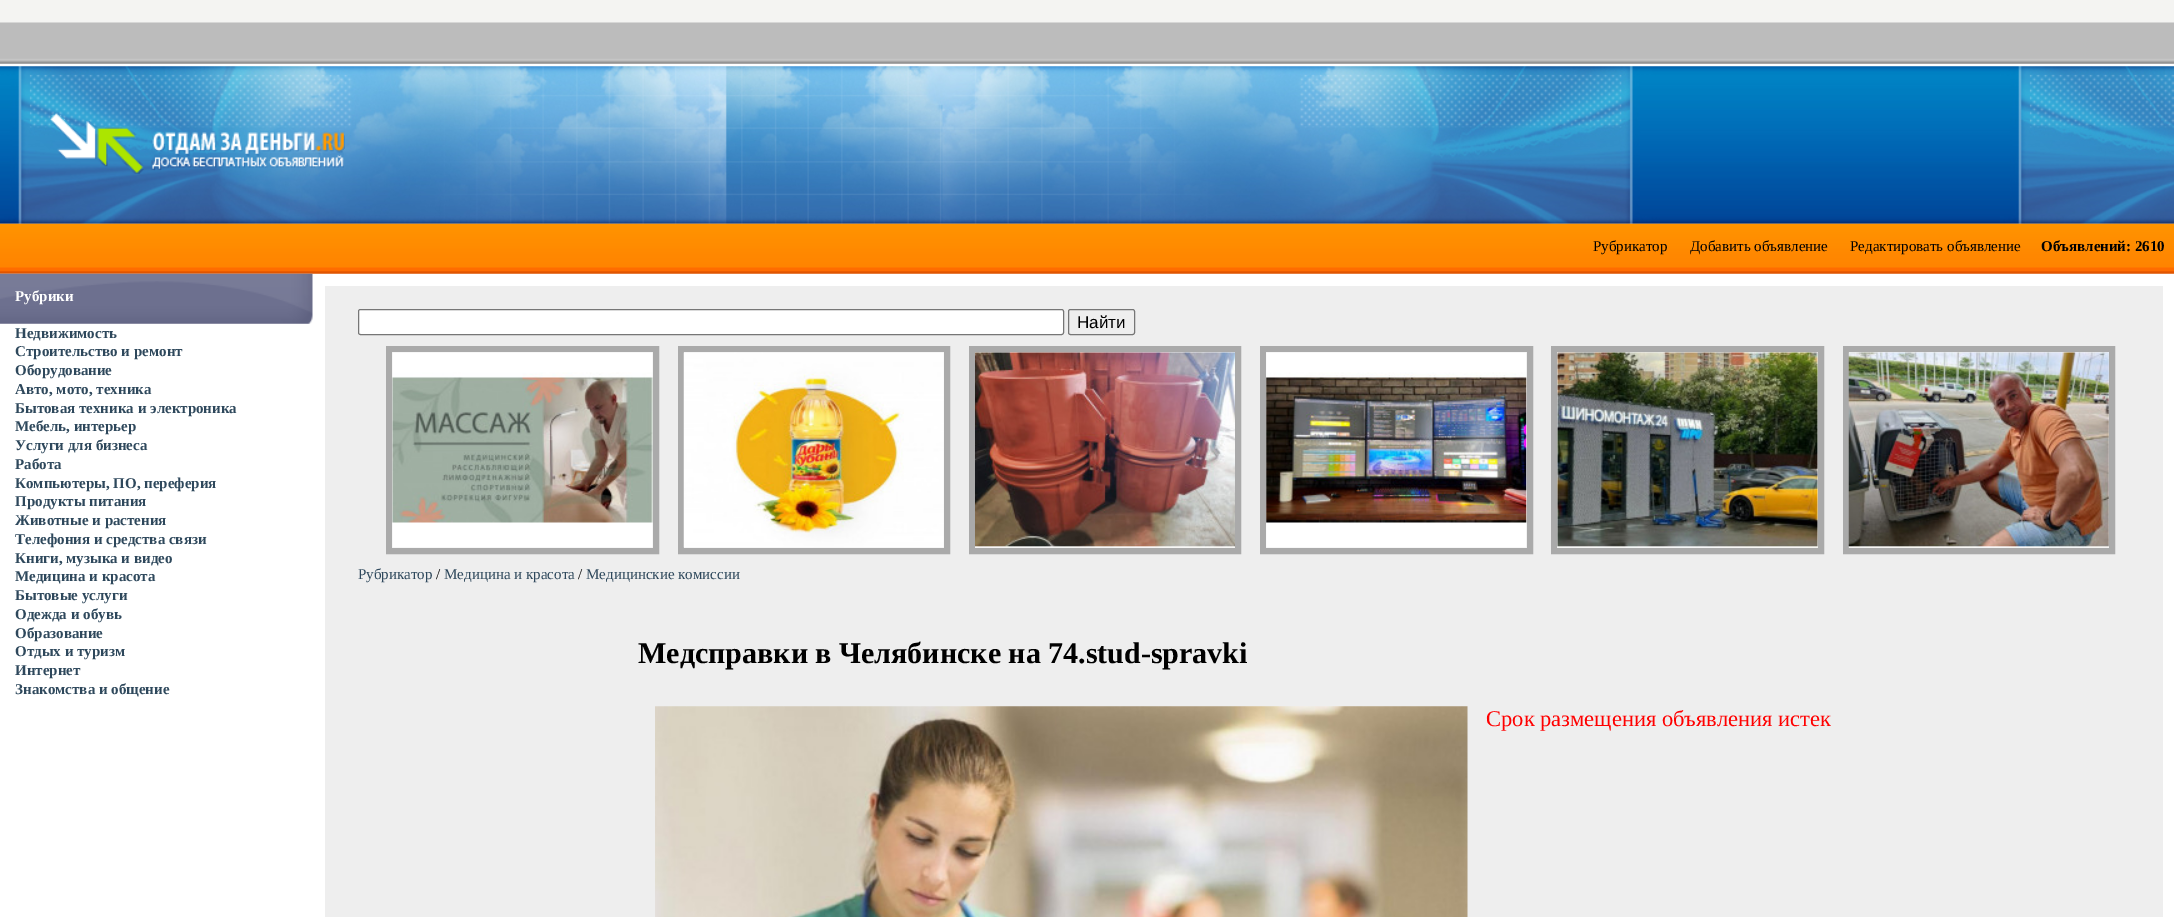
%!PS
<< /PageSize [2174 917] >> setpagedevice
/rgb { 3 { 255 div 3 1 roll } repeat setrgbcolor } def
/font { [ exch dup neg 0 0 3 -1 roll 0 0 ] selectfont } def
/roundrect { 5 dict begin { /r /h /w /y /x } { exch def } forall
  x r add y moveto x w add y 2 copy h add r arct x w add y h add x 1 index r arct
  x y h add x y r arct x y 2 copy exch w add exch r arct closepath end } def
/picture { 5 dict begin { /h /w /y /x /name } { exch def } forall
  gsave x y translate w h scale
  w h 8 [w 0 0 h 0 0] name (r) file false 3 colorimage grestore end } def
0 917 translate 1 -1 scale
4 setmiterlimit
244 244 242 rgb
0 0 2174 917 rectfill
(img/1.rgb) 0 22 2174 44 picture
(img/2.rgb) 0 66 2174 158 picture
(img/3.rgb) 50 112 295 62 picture
(img/4.rgb) 0 223 2174 51 picture
255 255 255 rgb
0 274 2174 643 rectfill
(img/5.rgb) 0 273 313 51 picture
238 238 238 rgb
325 286 1838 631 rectfill
255 255 255 rgb
358.5 309.5 705 25 2 roundrect gsave fill grestore
118 118 118 rgb
stroke
1068.5 309.5 66 25 2 roundrect stroke
170 170 170 rgb
6 setlinewidth
389 349 267 202 rectstroke
(img/6.rgb) 392 352 261 196 picture
681 349 266 202 rectstroke
(img/7.rgb) 683 352 261 196 picture
972 349 266 202 rectstroke
(img/8.rgb) 975 352 260 196 picture
1263 349 267 202 rectstroke
(img/9.rgb) 1266 352 261 196 picture
1554 349 267 202 rectstroke
(img/10.rgb) 1557 352 261 196 picture
1846 349 266 202 rectstroke
(img/11.rgb) 1848 352 261 196 picture
(img/12.rgb) 655 706 813 211 picture
/LiberationSerif-Regular 15 font
0 0 0 rgb
[
  [(Рубрикатор) 1593 251]
  [(Добавить объявление) 1690 251]
  [(Редактировать объявление) 1850 251]
] { aload pop moveto show } forall
/LiberationSerif-Bold 15 font
2041 251 moveto (Объявлений: 2610) show
255 255 255 rgb
15 301 moveto (Рубрики) show
46 72 92 rgb
[
  [(Недвижимость) 15 338]
  [(Строительство и ремонт) 15 356]
  [(Оборудование) 15 375]
  [(Авто, мото, техника) 15 394]
  [(Бытовая техника и электроника) 15 413]
  [(Мебель, интерьер) 15 431]
  [(Услуги для бизнеса) 15 450]
  [(Работа) 15 469]
  [(Компьютеры, ПО, переферия) 15 488]
  [(Продукты питания) 15 506]
  [(Животные и растения) 15 525]
  [(Телефония и средства связи) 15 544]
  [(Книги, музыка и видео) 15 563]
  [(Медицина и красота) 15 581]
  [(Бытовые услуги) 15 600]
  [(Одежда и обувь) 15 619]
  [(Образование) 15 638]
  [(Отдых и туризм) 15 656]
  [(Интернет) 15 675]
  [(Знакомства и общение) 15 694]
] { aload pop moveto show } forall
/LiberationSans-Regular 17 font
0 0 0 rgb
1077 328 moveto (Найти) show
/LiberationSerif-Regular 15 font
46 72 92 rgb
358 579 moveto (Рубрикатор) show
0 0 0 rgb
436 579 moveto (/) show
46 72 92 rgb
444 579 moveto (Медицина и красота) show
0 0 0 rgb
578 579 moveto (/) show
46 72 92 rgb
586 579 moveto (Медицинские комиссии) show
/LiberationSerif-Bold 30 font
0 0 0 rgb
638 663 moveto (Медсправки в Челябинске на 74.stud-spravki) show
/LiberationSerif-Regular 22.5 font
255 0 0 rgb
1486 726 moveto (Срок размещения объявления истек) show
showpage
